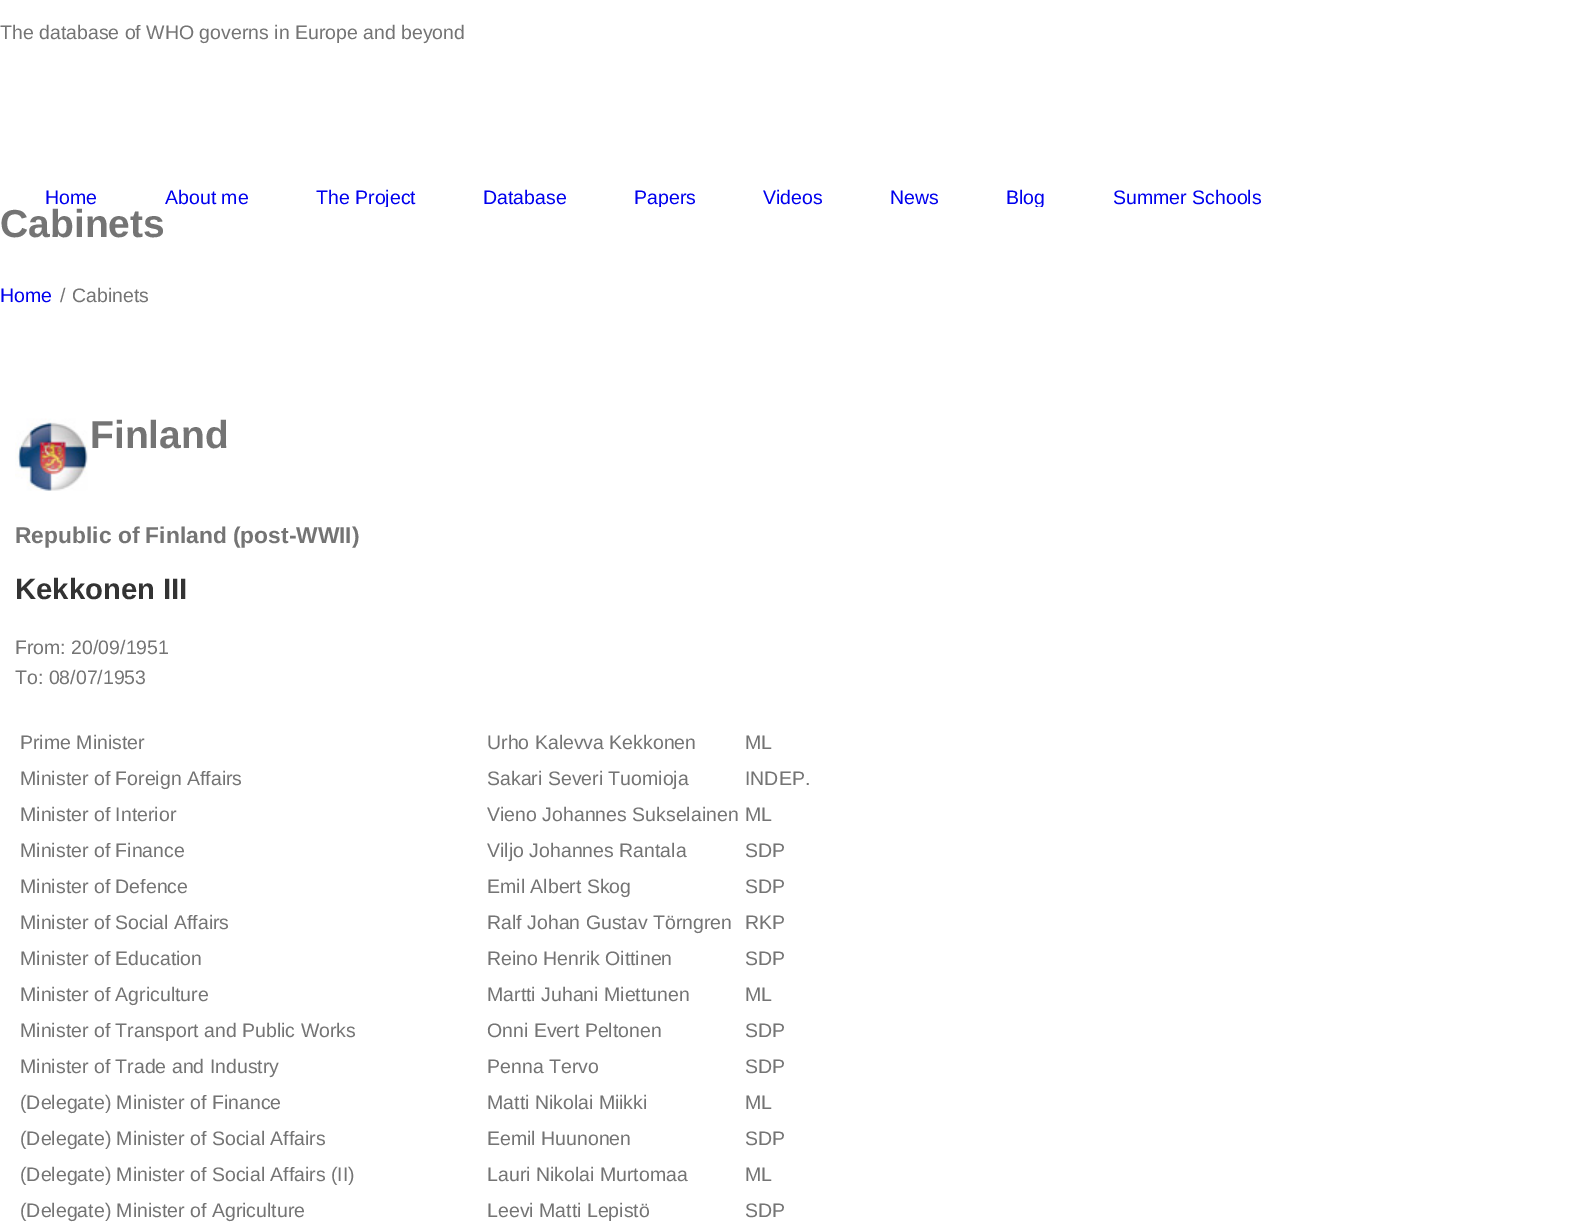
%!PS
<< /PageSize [1581 1231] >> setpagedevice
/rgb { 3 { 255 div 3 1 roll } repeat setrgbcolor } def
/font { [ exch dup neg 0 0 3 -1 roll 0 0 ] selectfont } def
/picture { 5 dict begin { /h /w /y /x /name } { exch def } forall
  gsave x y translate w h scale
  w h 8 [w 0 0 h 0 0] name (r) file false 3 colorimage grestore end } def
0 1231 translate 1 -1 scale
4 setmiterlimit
255 255 255 rgb
0 0 1581 1231 rectfill
(img/1.rgb) 15 418 73 73 picture
/LiberationSans-Regular 19.5 font
116 116 116 rgb
0 39 moveto (The database of WHO governs in Europe and beyond) show
0 0 238 rgb
45 204 moveto (Home) show
165 204 moveto (About me) show
gsave
45 188 1491 19 rectclip
316 204 moveto (The Project) show
grestore
483 204 moveto (Database) show
gsave
45 188 1491 19 rectclip
634 204 moveto (Papers) show
grestore
763 204 moveto (Videos) show
890 204 moveto (News) show
gsave
45 188 1491 19 rectclip
1006 204 moveto (Blog) show
grestore
1113 204 moveto (Summer Schools) show
/LiberationSans-Bold 39 font
116 116 116 rgb
0 237 moveto (Cabinets) show
/LiberationSans-Regular 19.5 font
0 0 238 rgb
0 302 moveto (Home) show
116 116 116 rgb
60 302 moveto (/) show
72 302 moveto (Cabinets) show
/LiberationSans-Bold 39 font
90 448 moveto (Finland) show
/LiberationSans-Bold 22.8 font
15 543 moveto (Republic of Finland \(post-WWII\)) show
/LiberationSans-Bold 29.25 font
51 51 51 rgb
15 599 moveto (Kekkonen III) show
/LiberationSans-Regular 19.5 font
116 116 116 rgb
[
  [(From: 20/09/1951) 15 654]
  [(To: 08/07/1953) 15 684]
  [(Prime Minister) 20 749]
  [(Urho Kalevva Kekkonen) 487 749]
  [(ML) 745 749]
  [(Minister of Foreign Affairs) 20 785]
  [(Sakari Severi Tuomioja) 487 785]
  [(INDEP.) 745 785]
  [(Minister of Interior) 20 821]
  [(Vieno Johannes Sukselainen) 487 821]
  [(ML) 745 821]
  [(Minister of Finance) 20 857]
  [(Viljo Johannes Rantala) 487 857]
  [(SDP) 745 857]
  [(Minister of Defence) 20 893]
  [(Emil Albert Skog) 487 893]
  [(SDP) 745 893]
  [(Minister of Social Affairs) 20 929]
  [(Ralf Johan Gustav Törngren) 487 929]
  [(RKP) 745 929]
  [(Minister of Education) 20 965]
  [(Reino Henrik Oittinen) 487 965]
  [(SDP) 745 965]
  [(Minister of Agriculture) 20 1001]
  [(Martti Juhani Miettunen) 487 1001]
  [(ML) 745 1001]
  [(Minister of Transport and Public Works) 20 1037]
  [(Onni Evert Peltonen) 487 1037]
  [(SDP) 745 1037]
  [(Minister of Trade and Industry) 20 1073]
  [(Penna Tervo) 487 1073]
  [(SDP) 745 1073]
  [(\(Delegate\) Minister of Finance) 20 1109]
  [(Matti Nikolai Miikki) 487 1109]
  [(ML) 745 1109]
  [(\(Delegate\) Minister of Social Affairs) 20 1145]
  [(Eemil Huunonen) 487 1145]
  [(SDP) 745 1145]
  [(\(Delegate\) Minister of Social Affairs \(II\)) 20 1181]
  [(Lauri Nikolai Murtomaa) 487 1181]
  [(ML) 745 1181]
  [(\(Delegate\) Minister of Agriculture) 20 1217]
  [(Leevi Matti Lepistö) 487 1217]
  [(SDP) 745 1217]
] { aload pop moveto show } forall
showpage
